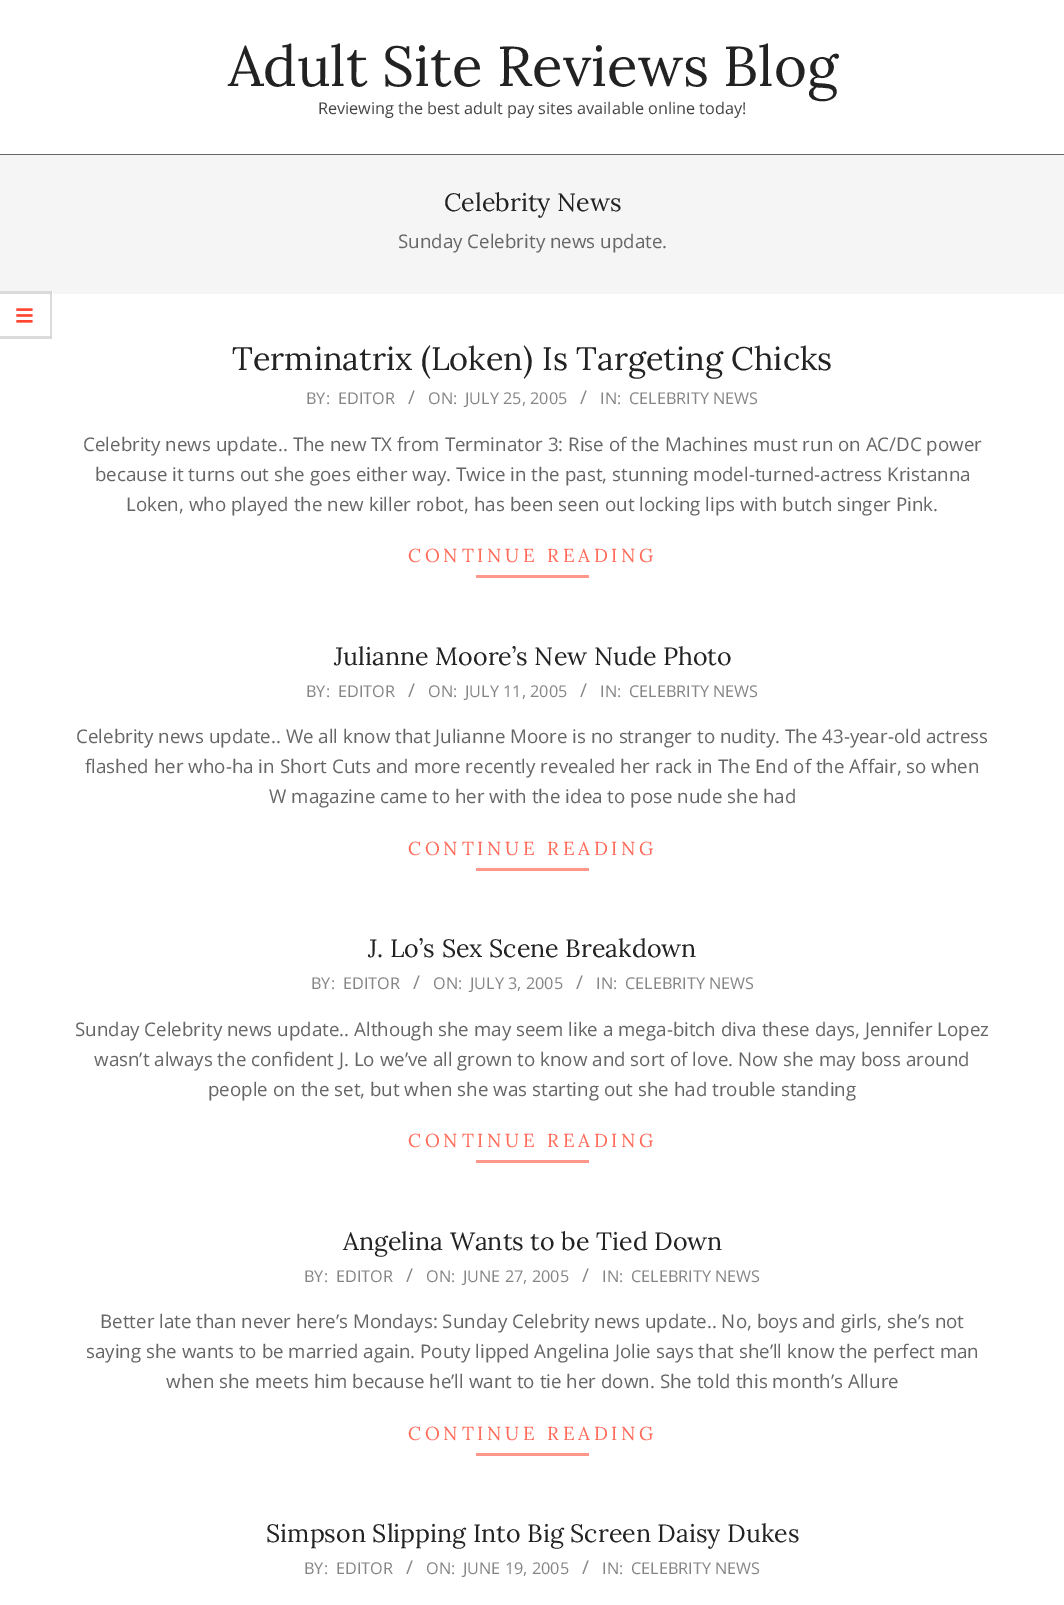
%!PS
<< /PageSize [1064 1605] /PageUsesTransparency true >> setpagedevice
/rgb { 3 { 255 div 3 1 roll } repeat setrgbcolor } def
/font { [ exch dup neg 0 0 3 -1 roll 0 0 ] selectfont } def
/alpha { dup .setfillconstantalpha .setstrokeconstantalpha } def
/picture { 5 dict begin { /h /w /y /x /name } { exch def } forall
  gsave x y translate w h scale
  w h 8 [w 0 0 h 0 0] name (r) file false 3 colorimage grestore end } def
0 .pushpdf14devicefilter
0 1605 translate 1 -1 scale
4 setmiterlimit
255 255 255 rgb
0 0 1064 1605 rectfill
[
  [0 154 1064 1 102 102 102]
  [0 155 1064 139 245 245 245]
  [0 291 53 3 255 255 255]
] { aload pop rgb rectfill } forall
219 219 219 rgb
0 291 moveto 52 291 lineto 50 294 lineto 0 294 lineto closepath fill
0.14 alpha
0 0 0 rgb
52 291 moveto 52 339 lineto 50 336 lineto 50 294 lineto closepath fill
52 339 moveto 0 339 lineto 0 336 lineto 50 336 lineto closepath fill
1 alpha
(img/1.rgb) 16 308 17 15 picture
[
  [476 575 113 3 255 151 139]
  [476 868 113 3 255 151 139]
  [476 1160 113 3 255 151 139]
  [476 1453 113 3 255 151 139]
] { aload pop rgb rectfill } forall
/Lora-Regular 56.25 font
34 34 34 rgb
228 86 moveto (Adult Site Reviews Blog) show
/OpenSans-Regular 16.25 font
68 68 68 rgb
318 114 moveto (Reviewing the best adult pay sites available online today!) show
/Lora-Regular 25 font
34 34 34 rgb
444 211 moveto (Celebrity News) show
/OpenSans-Regular 18.75 font
102 102 102 rgb
398 248 moveto (Sunday Celebrity news update.) show
/Lora-Regular 32.5 font
34 34 34 rgb
232 370 moveto (Terminatrix \(Loken\) Is Targeting Chicks) show
/OpenSans-Regular 16.25 font
133 133 133 rgb
306 404 moveto (BY:) show
338 404 moveto (EDITOR) show
/OpenSans-Regular 19 font
408 404 moveto (/) show
/OpenSans-Regular 16.25 font
428 404 moveto (ON:) show
465 404 moveto (JULY 25, 2005) show
/OpenSans-Regular 19 font
580 404 moveto (/) show
/OpenSans-Regular 16.25 font
600 404 moveto (IN:) show
629 404 moveto (CELEBRITY NEWS) show
/OpenSans-Regular 18.75 font
102 102 102 rgb
[
  [(Celebrity news update.. The new TX from Terminator 3: Rise of the Machines must run on AC/DC power) 83 451]
  [(because it turns out she goes either way. Twice in the past, stunning model-turned-actress Kristanna) 95 481]
  [(Loken, who played the new killer robot, has been seen out locking lips with butch singer Pink.) 126 511]
] { aload pop moveto show } forall
/Lora-Regular 18.75 font
255 106 89 rgb
408 562 moveto 3.75 0 (CONTINUE READING) ashow
/Lora-Regular 25 font
34 34 34 rgb
334 665 moveto (Julianne Moore’s New Nude Photo) show
/OpenSans-Regular 16.25 font
133 133 133 rgb
306 697 moveto (BY:) show
338 697 moveto (EDITOR) show
/OpenSans-Regular 19 font
408 697 moveto (/) show
/OpenSans-Regular 16.25 font
428 697 moveto (ON:) show
465 697 moveto (JULY 11, 2005) show
/OpenSans-Regular 19 font
580 697 moveto (/) show
/OpenSans-Regular 16.25 font
600 697 moveto (IN:) show
629 697 moveto (CELEBRITY NEWS) show
/OpenSans-Regular 18.75 font
102 102 102 rgb
[
  [(Celebrity news update.. We all know that Julianne Moore is no stranger to nudity. The 43-year-old actress) 76 743]
  [(flashed her who-ha in Short Cuts and more recently revealed her rack in The End of the Affair, so when) 85 773]
  [(W magazine came to her with the idea to pose nude she had) 269 803]
] { aload pop moveto show } forall
/Lora-Regular 18.75 font
255 106 89 rgb
408 855 moveto 3.75 0 (CONTINUE READING) ashow
/Lora-Regular 25 font
34 34 34 rgb
368 957 moveto (J. Lo’s Sex Scene Breakdown) show
/OpenSans-Regular 16.25 font
133 133 133 rgb
311 989 moveto (BY:) show
343 989 moveto (EDITOR) show
/OpenSans-Regular 19 font
413 989 moveto (/) show
/OpenSans-Regular 16.25 font
433 989 moveto (ON:) show
470 989 moveto (JULY 3, 2005) show
/OpenSans-Regular 19 font
576 989 moveto (/) show
/OpenSans-Regular 16.25 font
596 989 moveto (IN:) show
625 989 moveto (CELEBRITY NEWS) show
/OpenSans-Regular 18.75 font
102 102 102 rgb
[
  [(Sunday Celebrity news update.. Although she may seem like a mega-bitch diva these days, Jennifer Lopez) 75 1036]
  [(wasn’t always the confident J. Lo we’ve all grown to know and sort of love. Now she may boss around) 94 1066]
  [(people on the set, but when she was starting out she had trouble standing) 208 1096]
] { aload pop moveto show } forall
/Lora-Regular 18.75 font
255 106 89 rgb
408 1147 moveto 3.75 0 (CONTINUE READING) ashow
/Lora-Regular 25 font
34 34 34 rgb
343 1250 moveto (Angelina Wants to be Tied Down) show
/OpenSans-Regular 16.25 font
133 133 133 rgb
304 1282 moveto (BY:) show
336 1282 moveto (EDITOR) show
/OpenSans-Regular 19 font
406 1282 moveto (/) show
/OpenSans-Regular 16.25 font
426 1282 moveto (ON:) show
463 1282 moveto (JUNE 27, 2005) show
/OpenSans-Regular 19 font
582 1282 moveto (/) show
/OpenSans-Regular 16.25 font
602 1282 moveto (IN:) show
631 1282 moveto (CELEBRITY NEWS) show
/OpenSans-Regular 18.75 font
102 102 102 rgb
[
  [(Better late than never here’s Mondays: Sunday Celebrity news update.. No, boys and girls, she’s not) 100 1328]
  [(saying she wants to be married again. Pouty lipped Angelina Jolie says that she’ll know the perfect man) 86 1358]
  [(when she meets him because he’ll want to tie her down. She told this month’s Allure) 166 1388]
] { aload pop moveto show } forall
/Lora-Regular 18.75 font
255 106 89 rgb
408 1440 moveto 3.75 0 (CONTINUE READING) ashow
/Lora-Regular 25 font
34 34 34 rgb
266 1542 moveto (Simpson Slipping Into Big Screen Daisy Dukes) show
/OpenSans-Regular 16.25 font
133 133 133 rgb
304 1574 moveto (BY:) show
336 1574 moveto (EDITOR) show
/OpenSans-Regular 19 font
406 1574 moveto (/) show
/OpenSans-Regular 16.25 font
426 1574 moveto (ON:) show
463 1574 moveto (JUNE 19, 2005) show
/OpenSans-Regular 19 font
582 1574 moveto (/) show
/OpenSans-Regular 16.25 font
602 1574 moveto (IN:) show
631 1574 moveto (CELEBRITY NEWS) show
.poppdf14devicefilter showpage
